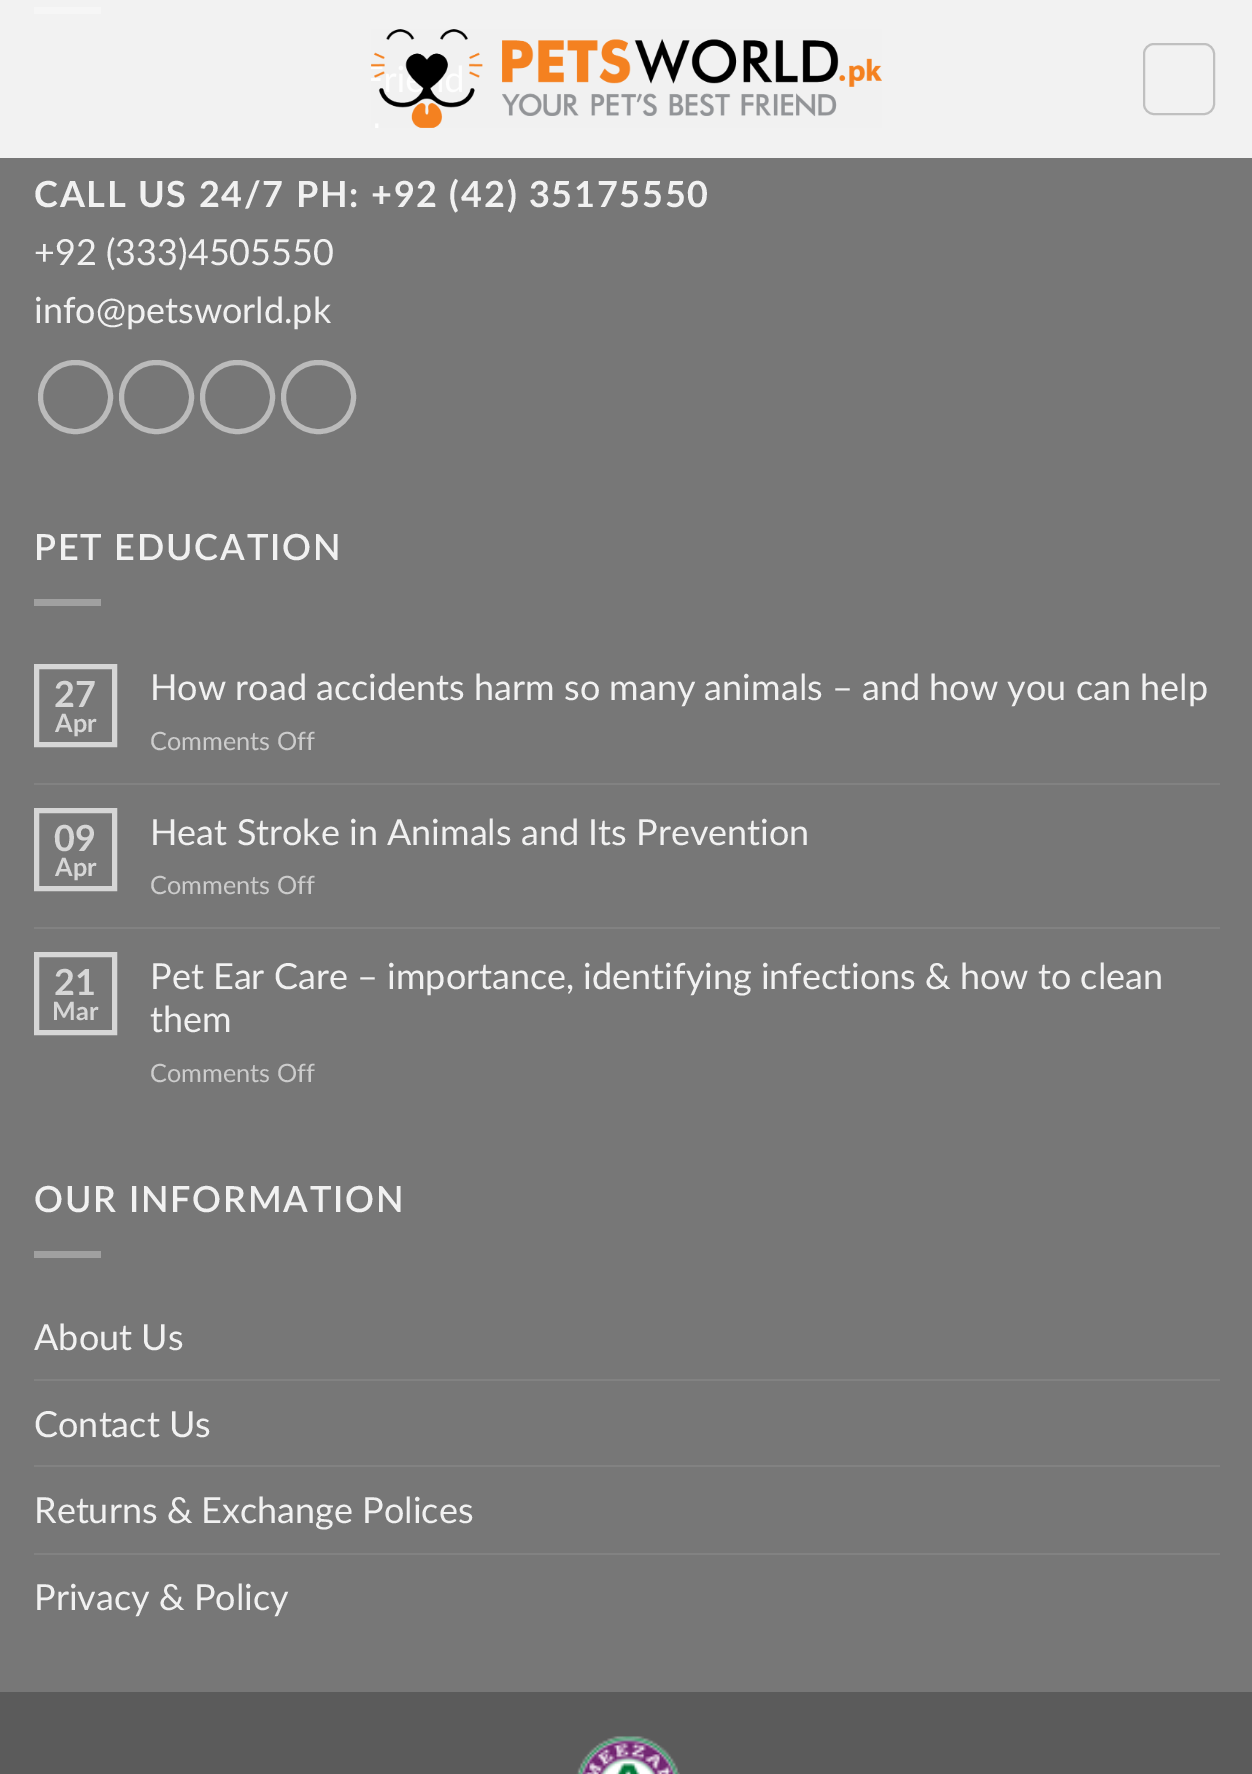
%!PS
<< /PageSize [1252 1774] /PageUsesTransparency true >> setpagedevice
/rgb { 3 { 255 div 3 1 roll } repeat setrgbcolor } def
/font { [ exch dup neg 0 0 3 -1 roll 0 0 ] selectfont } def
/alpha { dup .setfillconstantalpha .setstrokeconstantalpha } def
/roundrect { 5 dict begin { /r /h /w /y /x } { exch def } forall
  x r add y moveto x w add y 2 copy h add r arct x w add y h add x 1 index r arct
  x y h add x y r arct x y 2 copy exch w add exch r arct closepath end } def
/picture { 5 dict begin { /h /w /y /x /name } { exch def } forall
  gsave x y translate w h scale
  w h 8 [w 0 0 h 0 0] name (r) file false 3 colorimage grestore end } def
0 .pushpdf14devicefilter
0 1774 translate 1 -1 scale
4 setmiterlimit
119 119 119 rgb
0 0 1252 1774 rectfill
160 160 160 rgb
34 7 67 7 rectfill
0.9 alpha
255 255 255 rgb
0 0 1252 158 rectfill
1 alpha
(img/1.rgb) 371 29 511 99 picture
192 192 192 rgb
2 setlinewidth
1144 44 70 70 10 roundrect stroke
187 187 187 rgb
5 setlinewidth
40.5 362.5 70 69 34.5 roundrect stroke
121.5 362.5 70 69 34.5 roundrect stroke
202.5 362.5 70 69 34.5 roundrect stroke
283.5 362.5 70 69 34.5 roundrect stroke
160 160 160 rgb
34 599 67 7 rectfill
214 214 214 rgb
36.5 666.5 78 78 rectstroke
130 130 130 rgb
34 783 1186 2 rectfill
214 214 214 rgb
36.5 810.5 78 78 rectstroke
130 130 130 rgb
34 927 1186 2 rectfill
214 214 214 rgb
36.5 954.5 78 78 rectstroke
[
  [34 1251 67 7 160 160 160]
  [34 1379 1186 2 130 130 130]
  [34 1465 1186 2 130 130 130]
  [34 1553 1186 2 130 130 130]
  [0 1692 1252 82 91 91 91]
] { aload pop rgb rectfill } forall
(img/2.rgb) 576 1736 104 38 picture
/Lato-Bold 36 font
241 241 241 rgb
34 207 moveto 1.8 0 (CALL US 24/7 PH: +92 \(42\) 35175550) ashow
/Lato-Regular 36 font
34 265 moveto (+92 \(333\)4505550) show
34 323 moveto (info@petsworld.pk) show
/Lato-SemiBold 36 font
34 560 moveto 1.8 0 (PET EDUCATION) ashow
/Lato-Bold 36 font
214 214 214 rgb
54 707 moveto (27) show
/Lato-Bold 25.25 font
55 732 moveto (Apr) show
/Lato-Regular 36 font
241 241 241 rgb
150 700 moveto (How road accidents harm so many animals – and how you can help) show
/Lato-Regular 25.25 font
204 204 204 rgb
150 750 moveto (Comments Off) show
/Lato-Bold 36 font
214 214 214 rgb
54 851 moveto (09) show
/Lato-Bold 25.25 font
55 876 moveto (Apr) show
/Lato-Regular 36 font
241 241 241 rgb
150 845 moveto (Heat Stroke in Animals and Its Prevention) show
/Lato-Regular 25.25 font
204 204 204 rgb
150 894 moveto (Comments Off) show
/Lato-Bold 36 font
214 214 214 rgb
54 995 moveto (21) show
/Lato-Bold 25.25 font
52 1020 moveto (Mar) show
/Lato-Regular 36 font
241 241 241 rgb
150 989 moveto (Pet Ear Care – importance, identifying infections & how to clean) show
150 1032 moveto (them) show
/Lato-Regular 25.25 font
204 204 204 rgb
150 1082 moveto (Comments Off) show
/Lato-SemiBold 36 font
241 241 241 rgb
34 1212 moveto 1.8 0 (OUR INFORMATION) ashow
/Lato-Regular 36 font
[
  [(About Us) 34 1350]
  [(Contact Us) 34 1437]
  [(Returns & Exchange Polices) 34 1523]
  [(Privacy & Policy) 34 1610]
] { aload pop moveto show } forall
.poppdf14devicefilter showpage
